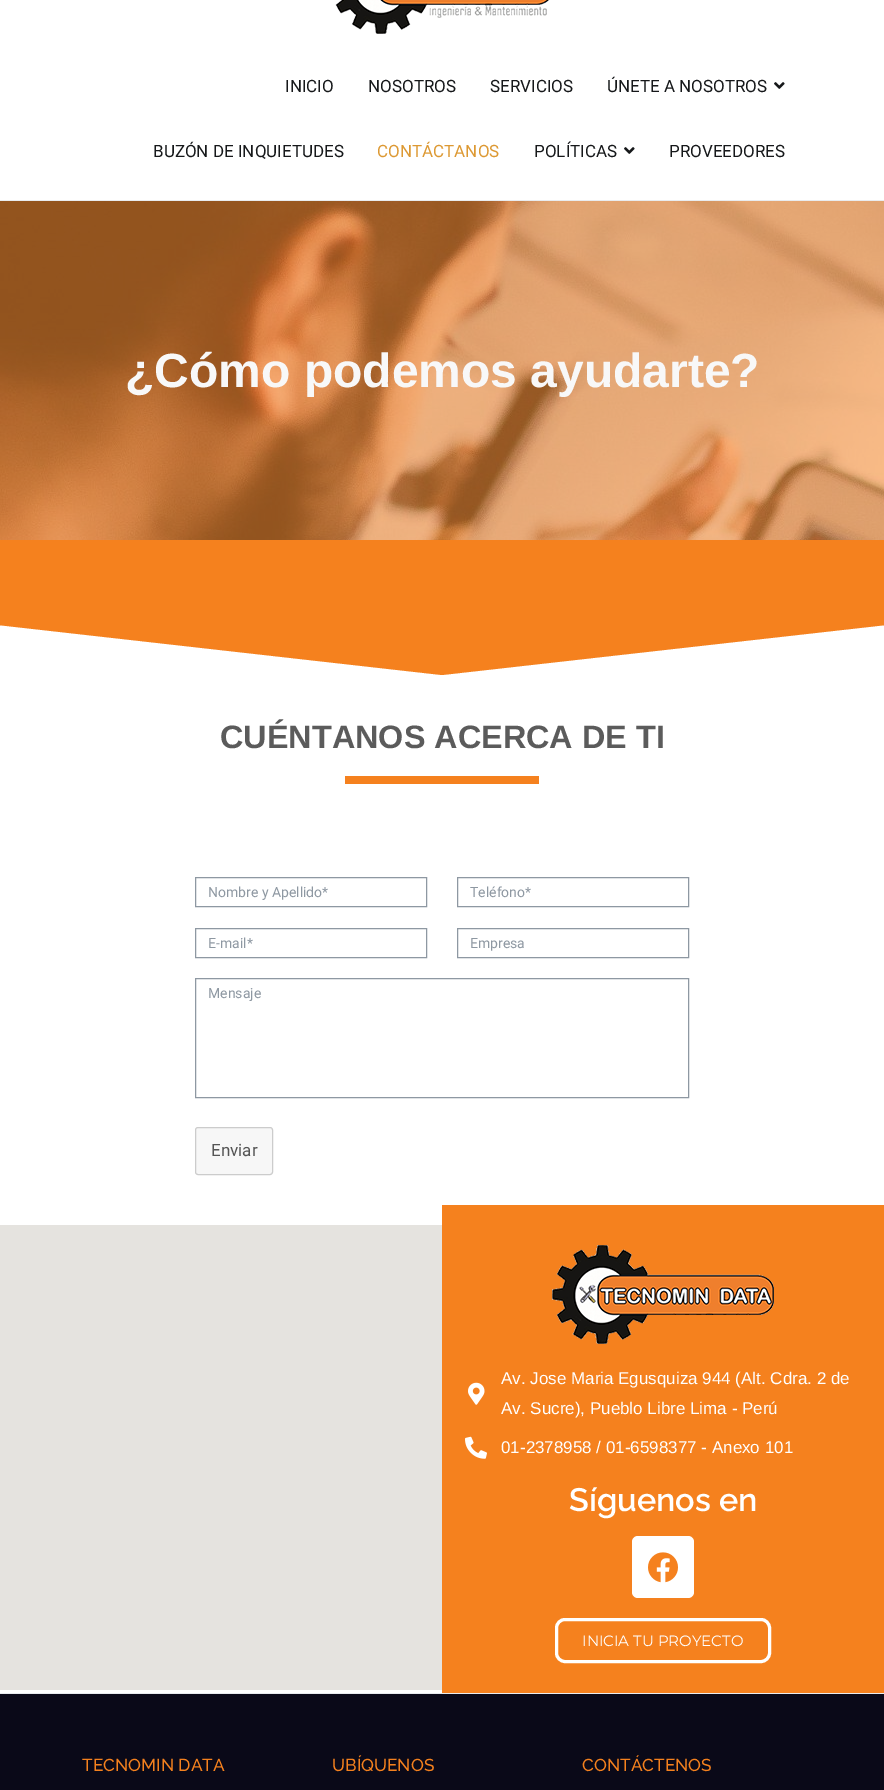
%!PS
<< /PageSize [884 1790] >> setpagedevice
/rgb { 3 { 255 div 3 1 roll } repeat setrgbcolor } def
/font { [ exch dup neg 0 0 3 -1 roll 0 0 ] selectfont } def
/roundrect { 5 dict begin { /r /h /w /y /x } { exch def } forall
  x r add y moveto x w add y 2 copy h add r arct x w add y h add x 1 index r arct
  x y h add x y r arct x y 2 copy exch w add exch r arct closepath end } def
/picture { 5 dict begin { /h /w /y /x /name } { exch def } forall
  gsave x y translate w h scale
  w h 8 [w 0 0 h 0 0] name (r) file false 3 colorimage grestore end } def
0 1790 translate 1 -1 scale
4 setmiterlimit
255 255 255 rgb
0 0 884 1790 rectfill
233 236 239 rgb
0 200 884 1 rectfill
(img/1.rgb) 335 0 214 34 picture
(img/2.rgb) 774 82 11 7 picture
(img/2.rgb) 624 147 11 7 picture
(img/3.rgb) 0 201 884 339 picture
245 129 30 rgb
442 675 moveto -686 548 lineto -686 540 lineto 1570 540 lineto 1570 548 lineto closepath fill
345 776 194 8 rectfill
142 152 162 rgb
195.5 877.5 231 29 rectstroke
457.5 877.5 231 29 rectstroke
195.5 928.5 231 29 rectstroke
457.5 928.5 231 29 rectstroke
195.5 978.5 493 119 rectstroke
247 247 247 rgb
195.5 1127.5 77 47 2.5 roundrect gsave fill grestore
204 204 204 rgb
stroke
229 227 223 rgb
0 1225 442 465 rectfill
245 129 30 rgb
442 1205 442 488 rectfill
(img/4.rgb) 552 1245 222 99 picture
(img/5.rgb) 468 1382 17 23 picture
(img/6.rgb) 465 1436 22 23 picture
255 255 255 rgb
632 1536 62 62 6 roundrect fill
(img/7.rgb) 648 1552 30 31 picture
3 setlinewidth
556.5 1619.5 213 42 8.5 roundrect stroke
10 9 24 rgb
0 1694 884 96 rectfill
233 236 239 rgb
0 1693 884 1 rectfill
/Roboto-Regular 17 font
22 24 26 rgb
[
  [(INICIO) 285 92]
  [(NOSOTROS) 368 92]
  [(SERVICIOS) 490 92]
  [(ÚNETE A NOSOTROS) 607 92]
  [(BUZÓN DE INQUIETUDES) 153 157]
] { aload pop moveto show } forall
221 153 51 rgb
377 157 moveto (CONTÁCTANOS) show
22 24 26 rgb
534 157 moveto (POLÍTICAS) show
669 157 moveto (PROVEEDORES) show
/LiberationSans-Bold 48 font
248 248 248 rgb
125 387 moveto (¿Cómo podemos ayudarte?) show
/LiberationSans-Bold 32.4 font
91 91 91 rgb
220 748 moveto (CUÉNTANOS ACERCA DE TI) show
/Roboto-Regular 14 font
142 152 162 rgb
[
  [(Nombre y Apellido*) 208 897]
  [(Teléfono*) 470 897]
  [(E-mail*) 208 948]
  [(Empresa) 470 948]
  [(Mensaje) 208 998]
] { aload pop moveto show } forall
/Roboto-Regular 17 font
85 85 85 rgb
211 1156 moveto (Enviar) show
/LiberationSans-Regular 17 font
255 255 255 rgb
[
  [(Av. Jose Maria Egusquiza 944 \(Alt. Cdra. 2 de) 501 1384]
  [(Av. Sucre\), Pueblo Libre Lima - Perú) 501 1414]
  [(01-2378958 / 01-6598377 - Anexo 101) 501 1453]
] { aload pop moveto show } forall
/Raleway-SemiBold 32.4 font
569 1511 moveto (Síguenos en) show
/Montserrat-Regular 15 font
582 1646 moveto (INICIA TU PROYECTO) show
/Raleway-Medium 17.25 font
245 129 30 rgb
[
  [(TECNOMIN DATA) 82 1771]
  [(UBÍQUENOS) 332 1771]
  [(CONTÁCTENOS) 582 1771]
] { aload pop moveto show } forall
showpage
